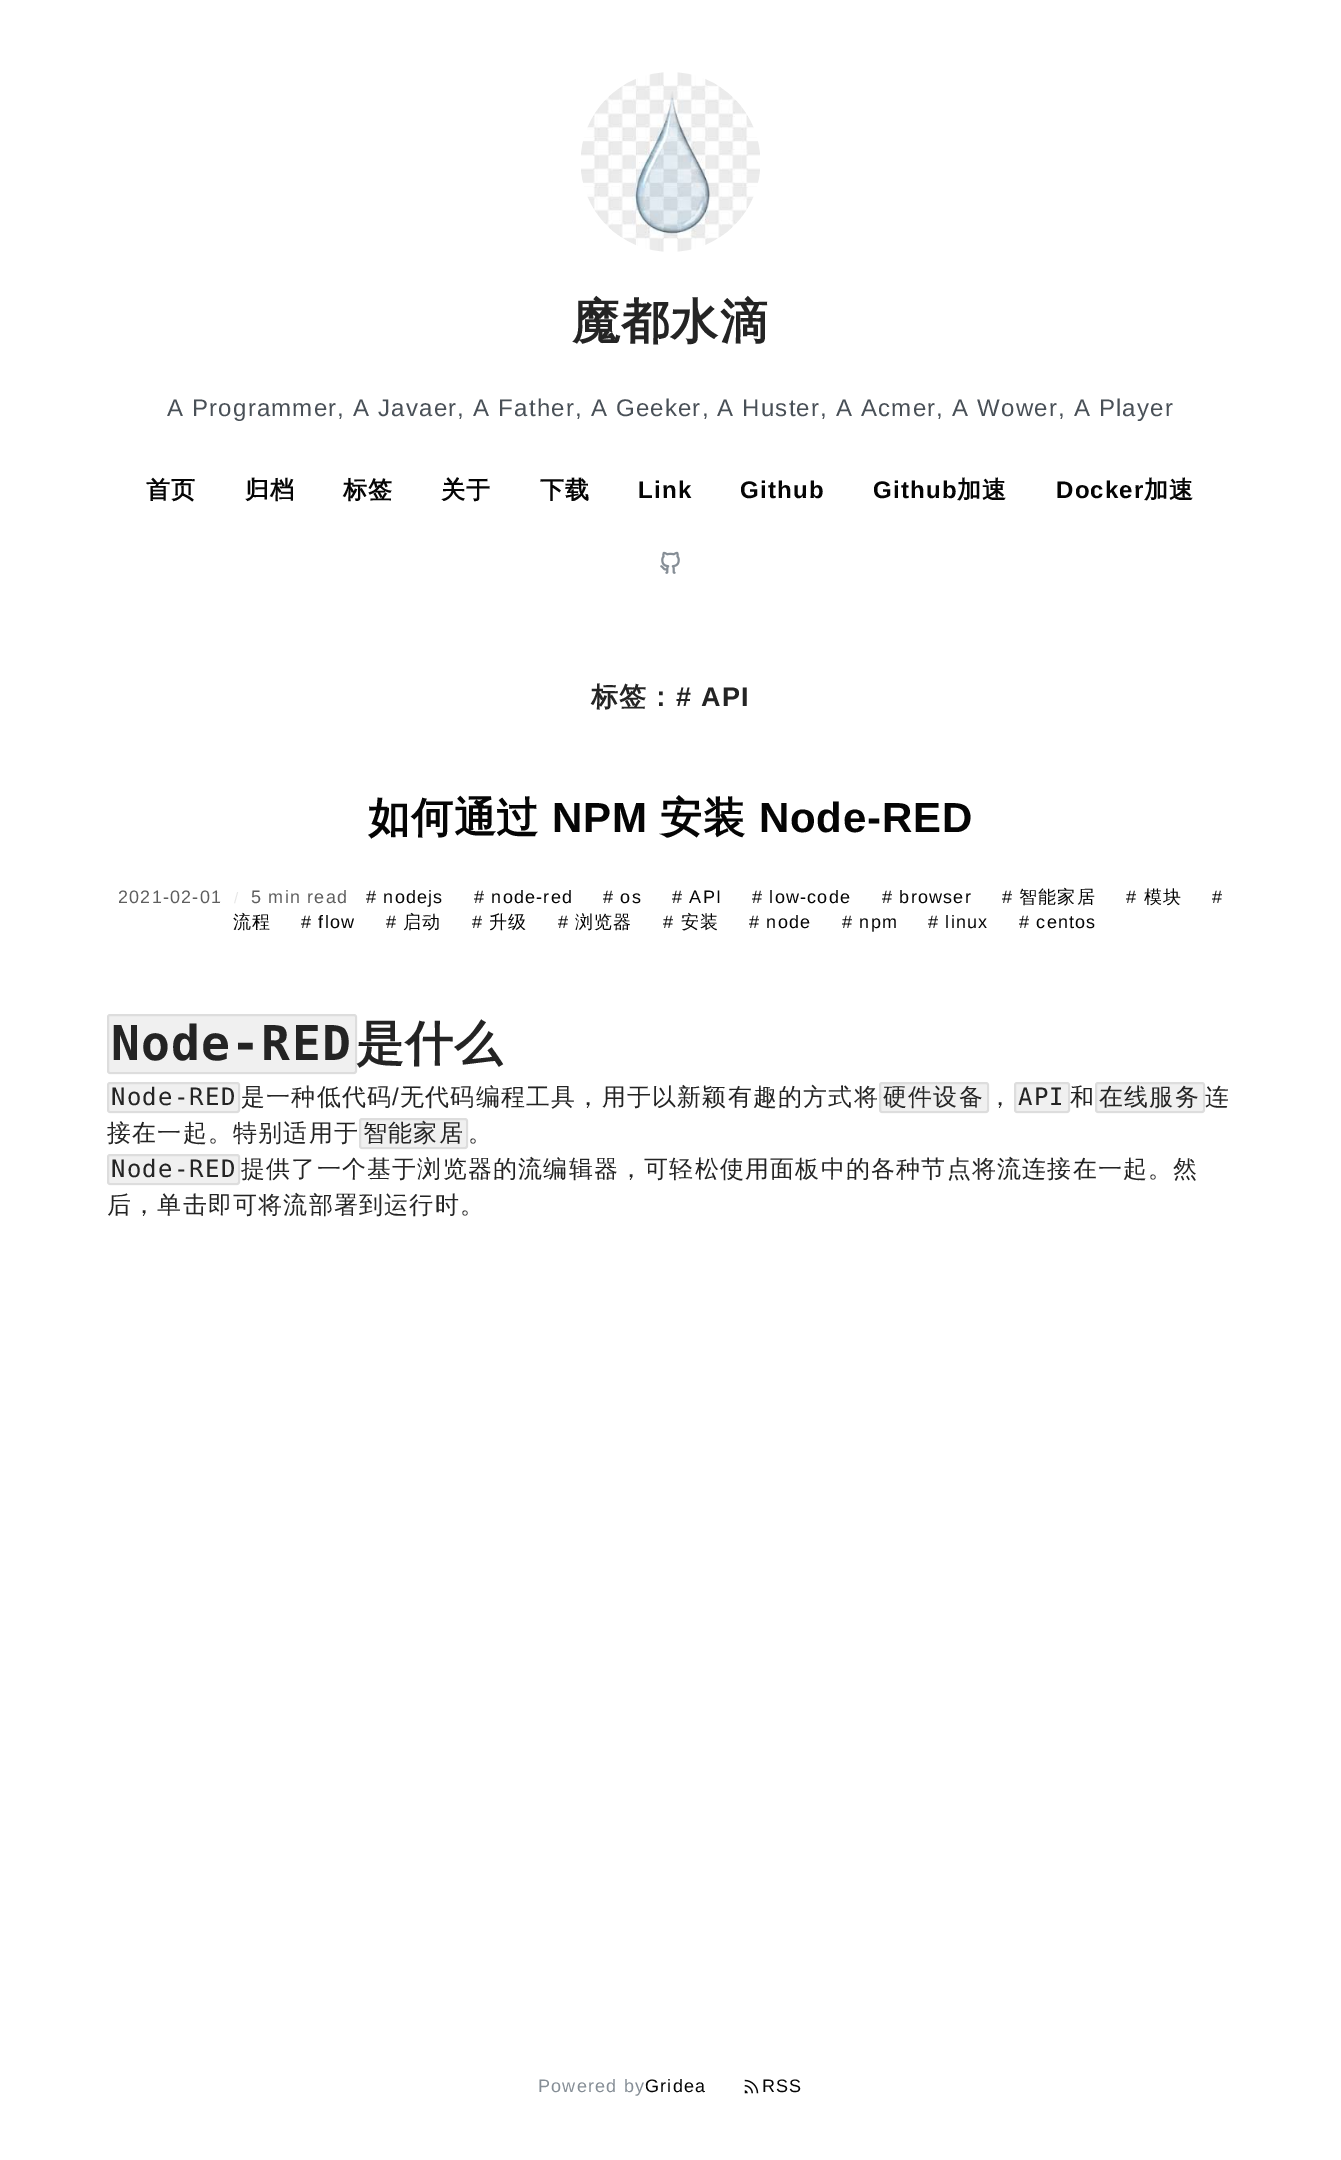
%!PS
<< /PageSize [1341 2160] /PageUsesTransparency true >> setpagedevice
/rgb { 3 { 255 div 3 1 roll } repeat setrgbcolor } def
/font { [ exch dup neg 0 0 3 -1 roll 0 0 ] selectfont } def
/alpha { dup .setfillconstantalpha .setstrokeconstantalpha } def
/roundrect { 5 dict begin { /r /h /w /y /x } { exch def } forall
  x r add y moveto x w add y 2 copy h add r arct x w add y h add x 1 index r arct
  x y h add x y r arct x y 2 copy exch w add exch r arct closepath end } def
/picture { 5 dict begin { /h /w /y /x /name } { exch def } forall
  gsave x y translate w h scale
  w h 8 [w 0 0 h 0 0] name (r) file false 3 colorimage grestore end } def
0 .pushpdf14devicefilter
0 2160 translate 1 -1 scale
4 setmiterlimit
255 255 255 rgb
0 0 1341 2160 rectfill
(img/1.rgb) 581 72 179 180 picture
(img/2.rgb) 660 551 20 23 picture
240 240 240 rgb
107 1014 250 60 3 roundrect fill
0.08 alpha
0 0 0 rgb
2 setlinewidth
108 1015 248 58 2 roundrect stroke
1 alpha
240 240 240 rgb
107 1082 133 31 3 roundrect fill
0.08 alpha
0 0 0 rgb
108 1083 131 29 2 roundrect stroke
1 alpha
240 240 240 rgb
879 1082 110 31 3 roundrect fill
0.08 alpha
0 0 0 rgb
880 1083 108 29 2 roundrect stroke
1 alpha
240 240 240 rgb
1014 1082 56 31 3 roundrect fill
0.08 alpha
0 0 0 rgb
1015 1083 54 29 2 roundrect stroke
1 alpha
240 240 240 rgb
1095 1082 110 31 3 roundrect fill
0.08 alpha
0 0 0 rgb
1096 1083 108 29 2 roundrect stroke
1 alpha
240 240 240 rgb
359 1118 109 31 3 roundrect fill
0.08 alpha
0 0 0 rgb
360 1119 107 29 2 roundrect stroke
1 alpha
240 240 240 rgb
107 1154 133 31 3 roundrect fill
0.08 alpha
0 0 0 rgb
108 1155 131 29 2 roundrect stroke
1 alpha
(img/3.rgb) 744 2079 15 15 picture
/WenQuanYiZenHei-Bold 48 font
36 36 36 rgb
572 338 moveto 1.2 0 (魔都水滴) ashow
/LiberationSans-Regular 24 font
73 80 87 rgb
167 416 moveto 1.2 0 (A Programmer, A Javaer, A Father, A Geeker, A Huster, A Acmer, A Wower, A Player) ashow
/WenQuanYiZenHei-Bold 24 font
5 5 5 rgb
146 498 moveto 1.2 0 (首页) ashow
245 498 moveto 1.2 0 (归档) ashow
343 498 moveto 1.2 0 (标签) ashow
441 498 moveto 1.2 0 (关于) ashow
540 498 moveto 1.2 0 (下载) ashow
/LiberationSans-Bold 24 font
638 498 moveto 1.2 0 (Link) ashow
740 498 moveto 1.2 0 (Github) ashow
873 498 moveto 1.2 0 (Github) ashow
/WenQuanYiZenHei-Bold 24 font
957 498 moveto 1.2 0 (加速) ashow
/LiberationSans-Bold 24 font
1056 498 moveto 1.2 0 (Docker) ashow
/WenQuanYiZenHei-Bold 24 font
1144 498 moveto 1.2 0 (加速) ashow
/WenQuanYiZenHei-Bold 27 font
36 36 36 rgb
591 706 moveto 1.2 0 (标签：) ashow
/LiberationSans-Bold 27 font
676 706 moveto 1.2 0 (# API) ashow
/WenQuanYiZenHei-Bold 42 font
5 5 5 rgb
368 832 moveto 0.75 0 (如何通过) ashow
/LiberationSans-Bold 42 font
552 832 moveto 0.75 0 (NPM) ashow
/WenQuanYiZenHei-Bold 42 font
660 832 moveto 0.75 0 (安装) ashow
/LiberationSans-Bold 42 font
759 832 moveto 0.75 0 (Node-RED) ashow
/LiberationSans-Regular 18 font
94 94 94 rgb
118 903 moveto 1.2 0 (2021-02-01) ashow
/LiberationSans-Regular 15 font
230 230 230 rgb
234 903 moveto 1.2 0 (/) ashow
/LiberationSans-Regular 18 font
94 94 94 rgb
251 903 moveto 1.2 0 (5 min read) ashow
5 5 5 rgb
366 903 moveto 1.2 0 (# nodejs) ashow
474 903 moveto 1.2 0 (# node-red) ashow
603 903 moveto 1.2 0 (# os) ashow
672 903 moveto 1.2 0 (# API) ashow
752 903 moveto 1.2 0 (# low-code) ashow
882 903 moveto 1.2 0 (# browser) ashow
1002 903 moveto 1.2 0 (#) ashow
/WenQuanYiZenHei-Medium 18 font
1019 903 moveto 1.2 0 (智能家居) ashow
/LiberationSans-Regular 18 font
1126 903 moveto 1.2 0 (#) ashow
/WenQuanYiZenHei-Medium 18 font
1144 903 moveto 1.2 0 (模块) ashow
/LiberationSans-Regular 18 font
1212 903 moveto 1.2 0 (#) ashow
/WenQuanYiZenHei-Medium 18 font
233 928 moveto 1.2 0 (流程) ashow
/LiberationSans-Regular 18 font
301 928 moveto 1.2 0 (# flow) ashow
386 928 moveto 1.2 0 (#) ashow
/WenQuanYiZenHei-Medium 18 font
403 928 moveto 1.2 0 (启动) ashow
/LiberationSans-Regular 18 font
472 928 moveto 1.2 0 (#) ashow
/WenQuanYiZenHei-Medium 18 font
489 928 moveto 1.2 0 (升级) ashow
/LiberationSans-Regular 18 font
558 928 moveto 1.2 0 (#) ashow
/WenQuanYiZenHei-Medium 18 font
575 928 moveto 1.2 0 (浏览器) ashow
/LiberationSans-Regular 18 font
663 928 moveto 1.2 0 (#) ashow
/WenQuanYiZenHei-Medium 18 font
681 928 moveto 1.2 0 (安装) ashow
/LiberationSans-Regular 18 font
749 928 moveto 1.2 0 (# node) ashow
842 928 moveto 1.2 0 (# npm) ashow
928 928 moveto 1.2 0 (# linux) ashow
1019 928 moveto 1.2 0 (# centos) ashow
/DejaVuSansMono-Bold 48 font
36 36 36 rgb
111 1060 moveto 1.2 0 (Node-RED) ashow
/WenQuanYiZenHei-Bold 48 font
356 1060 moveto 1.2 0 (是什么) ashow
/DejaVuSansMono-Regular 24 font
111 1105 moveto 1.2 0 (Node-RED) ashow
/WenQuanYiZenHei-Medium 24 font
241 1105 moveto 1.2 0 (是一种低代码) ashow
/LiberationSans-Regular 24 font
392 1105 moveto 1.2 0 (/) ashow
/WenQuanYiZenHei-Medium 24 font
400 1105 moveto 1.2 0 (无代码编程工具，用于以新颖有趣的方式将) ashow
883 1105 moveto 1.2 0 (硬件设备) ashow
988 1105 moveto 1.2 0 (，) ashow
/DejaVuSansMono-Regular 24 font
1018 1105 moveto 1.2 0 (API) ashow
/WenQuanYiZenHei-Medium 24 font
1070 1105 moveto 1.2 0 (和) ashow
1099 1105 moveto 1.2 0 (在线服务) ashow
1205 1105 moveto 1.2 0 (连) ashow
107 1141 moveto 1.2 0 (接在一起。特别适用于) ashow
363 1141 moveto 1.2 0 (智能家居) ashow
468 1141 moveto 1.2 0 (。) ashow
/DejaVuSansMono-Regular 24 font
111 1177 moveto 1.2 0 (Node-RED) ashow
/WenQuanYiZenHei-Medium 24 font
241 1177 moveto 1.2 0 (提供了一个基于浏览器的流编辑器，可轻松使用面板中的各种节点将流连接在一起。然) ashow
107 1213 moveto 1.2 0 (后，单击即可将流部署到运行时。) ashow
/LiberationSans-Regular 18 font
134 142 150 rgb
538 2092 moveto 1.2 0 (Powered by) ashow
5 5 5 rgb
645 2092 moveto 1.2 0 (Gridea) ashow
762 2092 moveto 1.2 0 (RSS) ashow
.poppdf14devicefilter showpage
